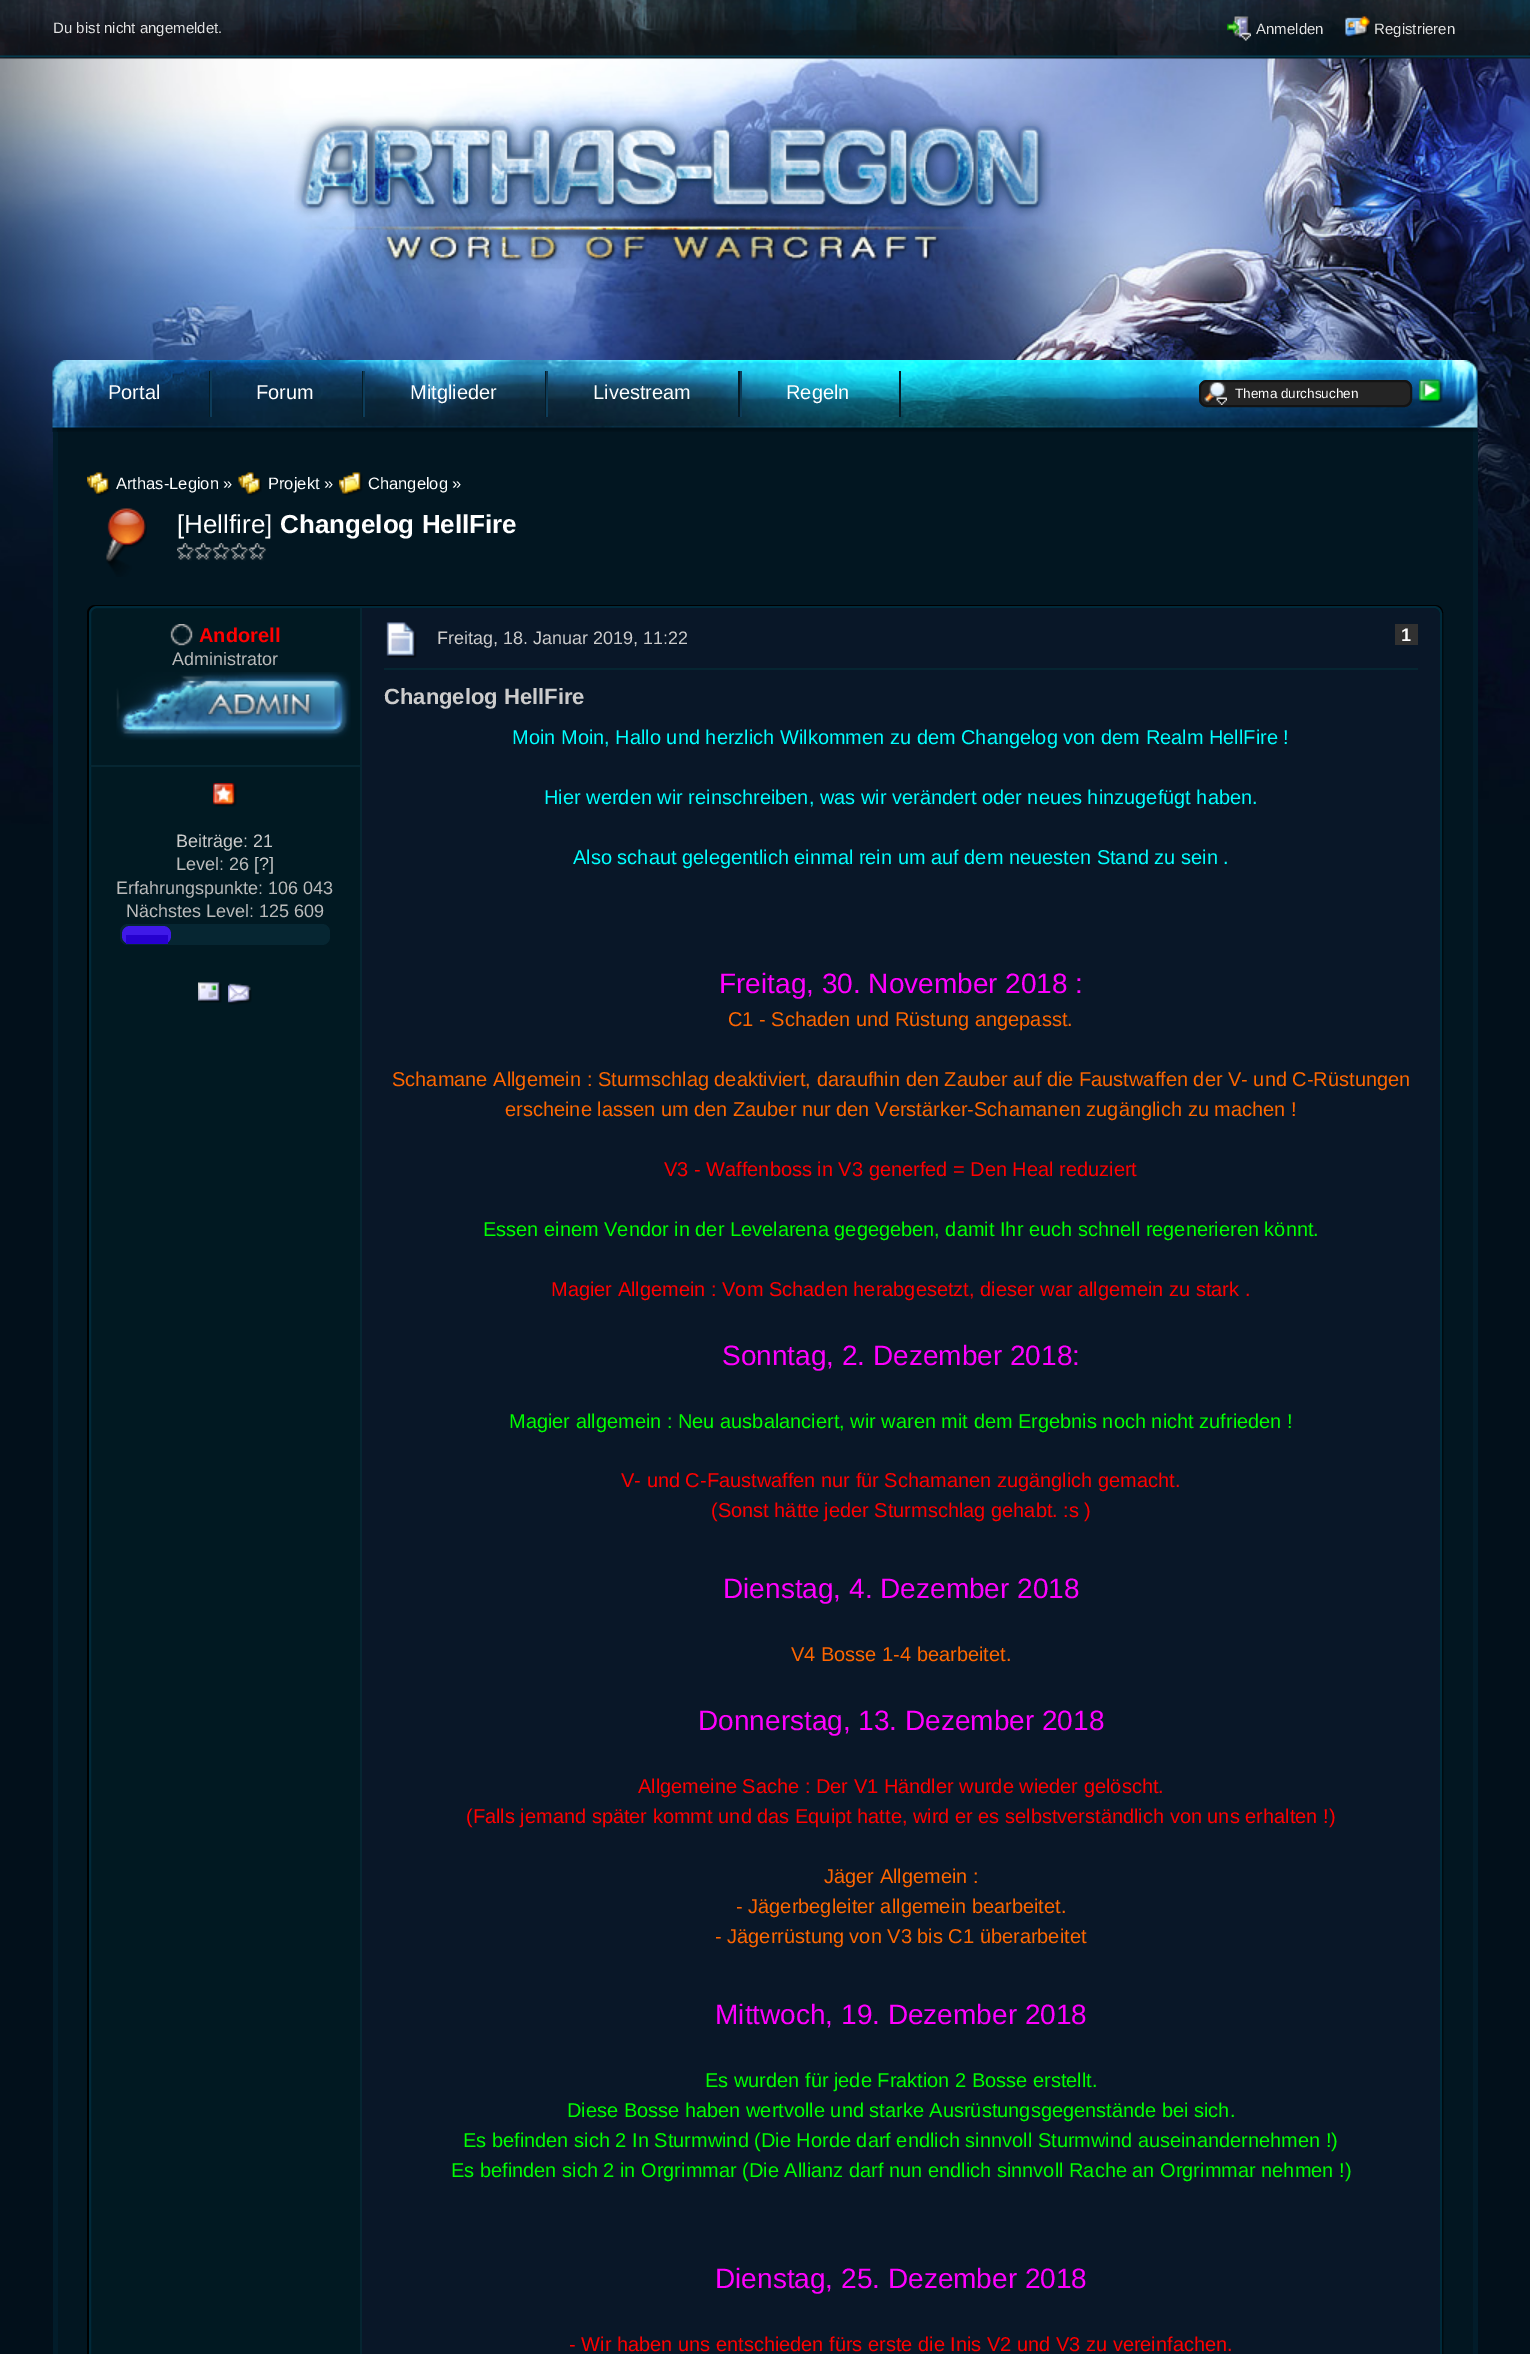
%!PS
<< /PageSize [1530 2354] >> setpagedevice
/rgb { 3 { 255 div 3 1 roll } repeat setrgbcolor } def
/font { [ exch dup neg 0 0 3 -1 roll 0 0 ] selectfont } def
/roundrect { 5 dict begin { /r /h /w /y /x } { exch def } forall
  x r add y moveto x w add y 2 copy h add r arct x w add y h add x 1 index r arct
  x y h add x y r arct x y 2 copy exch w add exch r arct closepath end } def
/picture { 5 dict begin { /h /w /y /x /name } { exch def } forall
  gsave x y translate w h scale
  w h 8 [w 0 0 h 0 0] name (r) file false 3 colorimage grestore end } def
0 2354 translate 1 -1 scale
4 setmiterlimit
2 16 27 rgb
0 0 1530 2354 rectfill
(img/1.rgb) 0 58 1530 766 picture
(img/2.rgb) 0 0 1530 59 picture
(img/3.rgb) 1227 16 24 25 picture
(img/4.rgb) 1345 16 25 22 picture
(img/5.rgb) 52 360 1426 72 picture
[
  [209 371 1 46 7 28 38]
  [362 371 1 46 7 28 38]
  [210 371 2 46 13 60 89]
  [545 371 1 46 7 28 38]
  [363 371 2 46 13 60 89]
  [738 371 2 46 7 28 38]
  [546 371 2 46 13 60 89]
  [899 371 2 46 7 28 38]
  [740 371 2 46 13 60 89]
] { aload pop rgb rectfill } forall
(img/6.rgb) 294 116 757 153 picture
36 36 36 rgb
1199 380 213 27 8 roundrect fill
(img/7.rgb) 1203 382 24 23 picture
19 19 19 rgb
2 setlinewidth
1200 381 211 25 7 roundrect stroke
(img/8.rgb) 1419 379 24 25 picture
[
  [58 432 1415 1922 2 22 33]
  [1473 432 5 1922 2 28 42]
  [53 432 5 1922 2 28 42]
] { aload pop rgb rectfill } forall
(img/9.rgb) 87 472 24 24 picture
(img/10.rgb) 238 472 24 24 picture
(img/11.rgb) 339 472 24 24 picture
(img/12.rgb) 106 508 41 69 picture
(img/13.rgb) 177 543 90 18 picture
0 0 0 rgb
88 606 1354 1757 7 roundrect stroke
1 25 34 rgb
90 607 1351 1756 7 roundrect gsave fill grestore
0 42 59 rgb
stroke
6 38 50 rgb
90 765 270 2 rectfill
(img/14.rgb) 170 624 23 22 picture
(img/15.rgb) 116 672 235 68 picture
(img/16.rgb) 213 783 24 24 picture
120 924 210 21 8 roundrect fill
63 25 232 rgb
122 926 49 18 8 roundrect fill
38 0 207 rgb
126 935 42 9 rectfill
(img/17.rgb) 198 982 24 21 picture
(img/18.rgb) 228 983 24 22 picture
6 38 50 rgb
360 608 2 1746 rectfill
9 23 40 rgb
362 608 moveto 1432 608 lineto 1436.5 608 1440 611.5 1440 616 curveto 1440 2354 lineto 1440 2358.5 1436.5 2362 1432 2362 curveto 362 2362 lineto closepath fill
6 38 50 rgb
384 668 1034 2 rectfill
(img/19.rgb) 386 622 31 36 picture
49 49 49 rgb
1395 624 23 21 rectfill
/LiberationSans-Regular 15 font
226 226 226 rgb
[
  [(Du bist nicht angemeldet.) 53 33]
  [(Anmelden) 1256 34]
  [(Registrieren) 1374 34]
] { aload pop moveto show } forall
/LiberationSans-Regular 20 font
255 255 255 rgb
[
  [(Portal) 108 399]
  [(Forum) 256 399]
  [(Mitglieder) 410 399]
  [(Livestream) 593 399]
  [(Regeln) 786 399]
] { aload pop moveto show } forall
/LiberationSans-Regular 13.5 font
1235 398 moveto (Thema durchsuchen) show
/LiberationSans-Regular 16.5 font
[
  [(Arthas-Legion ») 116 489]
  [(Projekt ») 268 489]
  [(Changelog ») 368 489]
] { aload pop moveto show } forall
/LiberationSans-Regular 26 font
177 533 moveto ([Hellfire]) show
/LiberationSans-Bold 26 font
280 533 moveto (Changelog HellFire) show
/LiberationSans-Bold 20 font
255 0 0 rgb
199 642 moveto (Andorell) show
/LiberationSans-Regular 18 font
187 187 187 rgb
172 665 moveto (Administrator) show
204 204 204 rgb
176 847 moveto (Beiträge: 21) show
187 187 187 rgb
176 870 moveto (Level: 26) show
204 204 204 rgb
254 870 moveto ([?]) show
187 187 187 rgb
116 894 moveto (Erfahrungspunkte: 106 043) show
126 917 moveto (Nächstes Level: 125 609) show
204 204 204 rgb
437 644 moveto (Freitag, 18. Januar 2019, 11:22) show
/LiberationSans-Bold 18 font
255 255 255 rgb
1401 641 moveto (1) show
/LiberationSans-Bold 22 font
204 204 204 rgb
384 704 moveto (Changelog HellFire) show
/LiberationSans-Regular 20 font
0 255 255 rgb
[
  [(Moin Moin, Hallo und herzlich Wilkommen zu dem Changelog von dem Realm HellFire !) 512 744]
  [(Hier werden wir reinschreiben, was wir verändert oder neues hinzugefügt haben.) 544 804]
  [(Also schaut gelegentlich einmal rein um auf dem neuesten Stand zu sein .) 573 864]
] { aload pop moveto show } forall
/LiberationSans-Regular 28 font
255 0 255 rgb
719 993 moveto (Freitag, 30. November 2018 :) show
/LiberationSans-Regular 20 font
255 102 0 rgb
[
  [(C1 - Schaden und Rüstung angepasst.) 728 1026]
  [(Schamane Allgemein : Sturmschlag deaktiviert, daraufhin den Zauber auf die Faustwaffen der V- und C-Rüstungen) 392 1086]
  [(erscheine lassen um den Zauber nur den Verstärker-Schamanen zugänglich zu machen !) 505 1116]
] { aload pop moveto show } forall
255 0 0 rgb
664 1176 moveto (V3 - Waffenboss in V3 generfed = Den Heal reduziert) show
0 255 0 rgb
483 1236 moveto (Essen einem Vendor in der Levelarena gegegeben, damit Ihr euch schnell regenerieren könnt.) show
255 0 0 rgb
551 1296 moveto (Magier Allgemein : Vom Schaden herabgesetzt, dieser war allgemein zu stark .) show
/LiberationSans-Regular 28 font
255 0 255 rgb
722 1365 moveto (Sonntag, 2. Dezember 2018:) show
/LiberationSans-Regular 20 font
0 255 0 rgb
509 1428 moveto (Magier allgemein : Neu ausbalanciert, wir waren mit dem Ergebnis noch nicht zufrieden !) show
255 0 0 rgb
621 1487 moveto (V- und C-Faustwaffen nur für Schamanen zugänglich gemacht.) show
711 1517 moveto (\(Sonst hätte jeder Sturmschlag gehabt. :s \)) show
/LiberationSans-Regular 28 font
255 0 255 rgb
723 1598 moveto (Dienstag, 4. Dezember 2018) show
/LiberationSans-Regular 20 font
255 102 0 rgb
791 1661 moveto (V4 Bosse 1-4 bearbeitet.) show
/LiberationSans-Regular 28 font
255 0 255 rgb
698 1730 moveto (Donnerstag, 13. Dezember 2018) show
/LiberationSans-Regular 20 font
255 0 0 rgb
638 1793 moveto (Allgemeine Sache : Der V1 Händler wurde wieder gelöscht.) show
466 1823 moveto (\(Falls jemand später kommt und das Equipt hatte, wird er es selbstverständlich von uns erhalten !\)) show
255 102 0 rgb
[
  [(Jäger Allgemein :) 824 1883]
  [(- Jägerbegleiter allgemein bearbeitet.) 736 1913]
  [(- Jägerrüstung von V3 bis C1 überarbeitet) 715 1943]
] { aload pop moveto show } forall
/LiberationSans-Regular 28 font
255 0 255 rgb
715 2024 moveto (Mittwoch, 19. Dezember 2018) show
/LiberationSans-Regular 20 font
0 255 0 rgb
[
  [(Es wurden für jede Fraktion 2 Bosse erstellt.) 705 2087]
  [(Diese Bosse haben wertvolle und starke Ausrüstungsgegenstände bei sich.) 567 2117]
  [(Es befinden sich 2 In Sturmwind \(Die Horde darf endlich sinnvoll Sturmwind auseinandernehmen !\)) 463 2147]
  [(Es befinden sich 2 in Orgrimmar \(Die Allianz darf nun endlich sinnvoll Rache an Orgrimmar nehmen !\)) 451 2177]
] { aload pop moveto show } forall
/LiberationSans-Regular 28 font
255 0 255 rgb
715 2288 moveto (Dienstag, 25. Dezember 2018) show
/LiberationSans-Regular 20 font
255 0 0 rgb
569 2351 moveto (- Wir haben uns entschieden fürs erste die Inis V2 und V3 zu vereinfachen.) show
showpage
